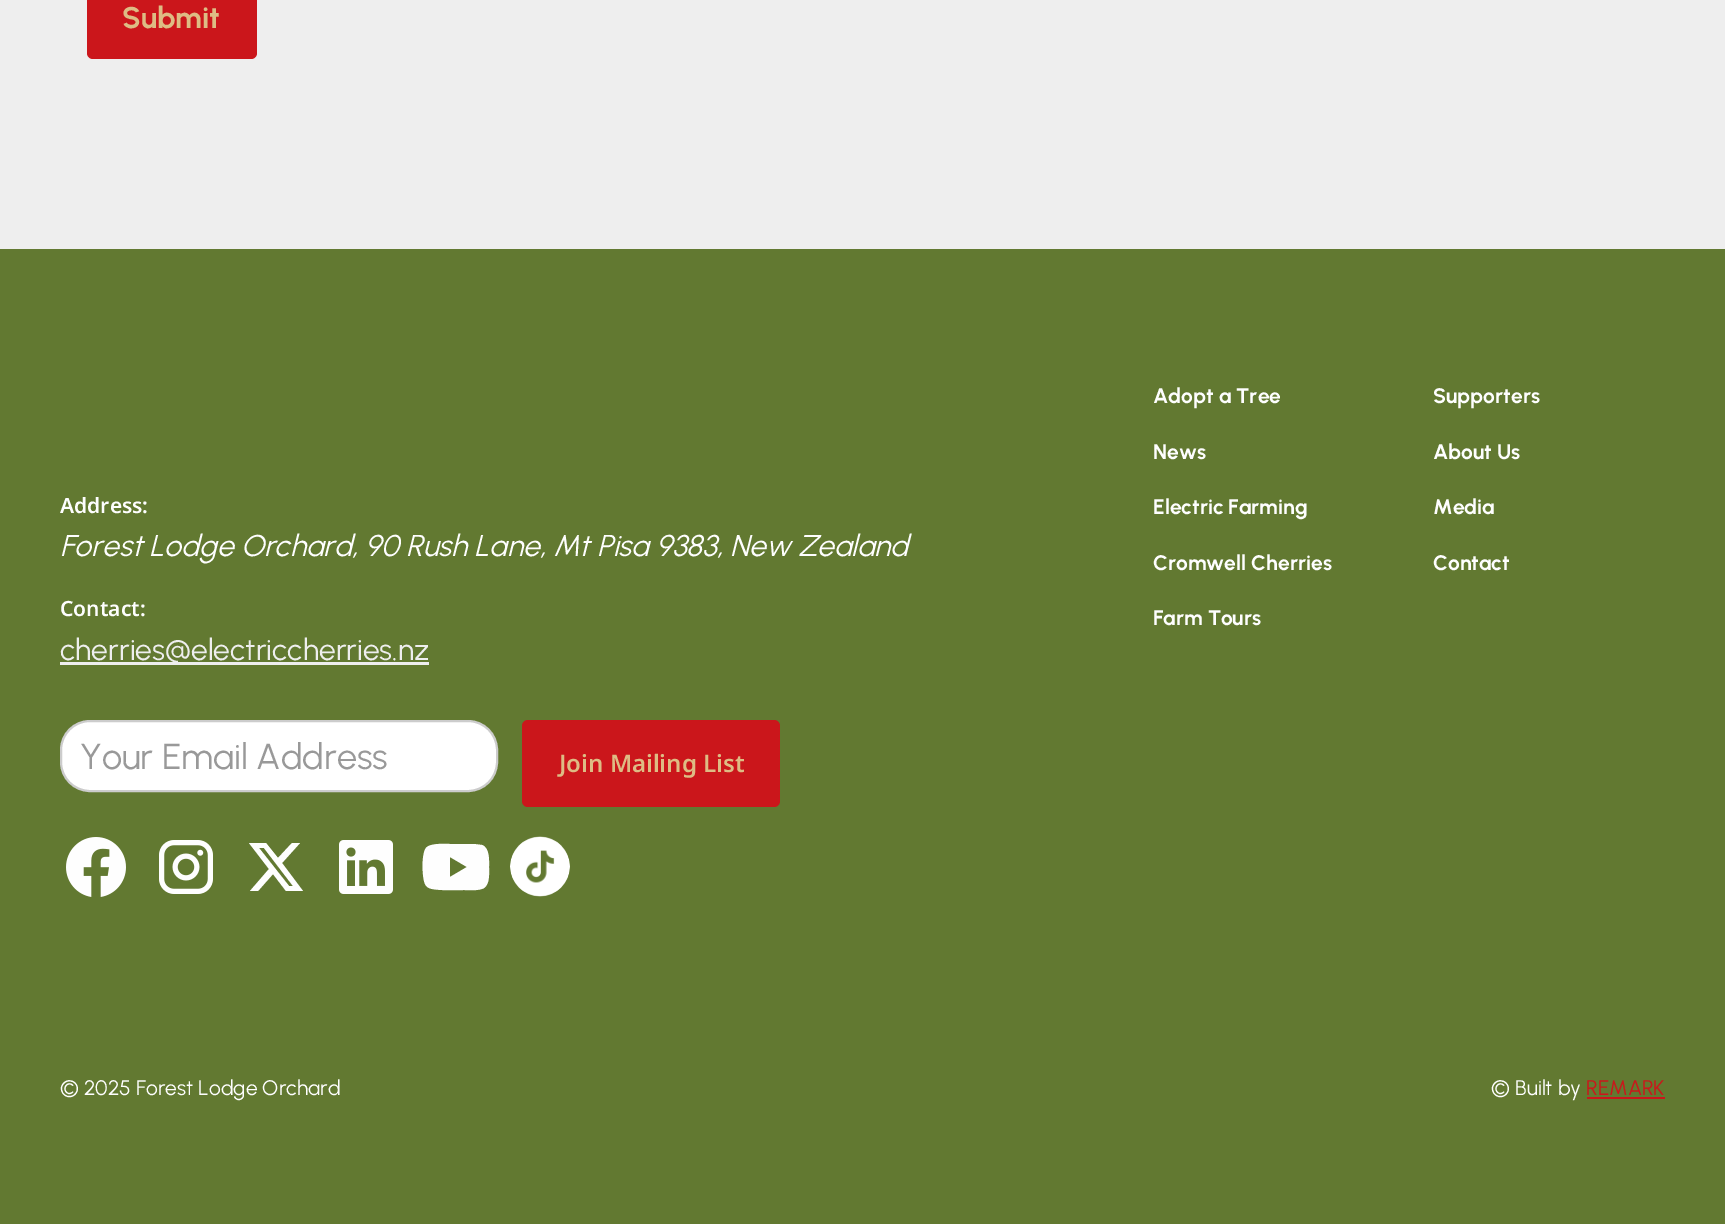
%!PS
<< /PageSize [1725 1224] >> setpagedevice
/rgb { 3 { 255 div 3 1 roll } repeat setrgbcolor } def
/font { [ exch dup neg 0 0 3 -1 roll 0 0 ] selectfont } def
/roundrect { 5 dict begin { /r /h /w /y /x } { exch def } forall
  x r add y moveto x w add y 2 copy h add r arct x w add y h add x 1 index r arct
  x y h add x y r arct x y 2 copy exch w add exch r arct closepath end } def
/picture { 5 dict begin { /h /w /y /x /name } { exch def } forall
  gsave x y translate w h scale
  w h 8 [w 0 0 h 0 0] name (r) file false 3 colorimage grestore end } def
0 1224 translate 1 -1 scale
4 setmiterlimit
238 238 238 rgb
0 0 1725 1224 rectfill
203 22 27 rgb
87 -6 170 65 6 roundrect fill
98 121 49 rgb
0 249 1725 975 rectfill
238 238 238 rgb
60 662 369 3 rectfill
255 255 255 rgb
61 721 436 70 29 roundrect gsave fill grestore
204 204 204 rgb
2 setlinewidth
stroke
203 22 27 rgb
522 720 258 87 6 roundrect fill
(img/1.rgb) 66 837 60 60 picture
(img/2.rgb) 159 840 54 54 picture
254 254 254 rgb
292 843 moveto 300 843 lineto 282 863 lineto 303 891 lineto 286 891 lineto 273 874 lineto 258 891 lineto 250 891 lineto 269 869 lineto 249 843 lineto 266 843 lineto 278 858 lineto closepath 289 886 moveto 293 886 lineto 264 848 lineto 259 848 lineto closepath fill
(img/3.rgb) 339 840 54 54 picture
482 845 moveto 490 848 489 861 489 867 curveto 489 873 490 884 484 888 curveto 479 891 469 890 464 890 curveto 457 890 435 891 429 888 curveto 427 887 426 886 425 884 curveto 422 878 421 851 427 847 curveto 432 843 445 844 450 844 curveto 474 844 lineto closepath 450 857 moveto 467 867 lineto 450 877 lineto closepath eofill
(img/4.rgb) 510 836 60 61 picture
203 22 27 rgb
1587 1097 78 2 rectfill
/Urbanist-Bold 30 font
222 188 132 rgb
122 28 moveto (Submit) show
/NotoSans-SemiBold 21 font
254 254 254 rgb
60 513 moveto (Address:) show
/Urbanist-Italic 30 font
60 556 moveto (Forest Lodge Orchard, 90 Rush Lane, Mt Pisa 9383, New Zealand) show
/NotoSans-SemiBold 21 font
60 616 moveto (Contact:) show
/Urbanist-Regular 30 font
238 238 238 rgb
60 660 moveto (cherries@electriccherries.nz) show
/Urbanist-Regular 36 font
153 153 153 rgb
80 769 moveto (Your Email Address) show
/NotoSans-SemiBold 24 font
222 188 132 rgb
559 772 moveto (Join Mailing List) show
/Urbanist-Bold 21 font
254 254 254 rgb
[
  [(Adopt a Tree) 1153 403]
  [(News) 1153 459]
  [(Electric Farming) 1153 514]
  [(Cromwell Cherries) 1153 570]
  [(Farm Tours) 1153 625]
  [(Supporters) 1433 403]
  [(About Us) 1433 459]
  [(Media) 1433 514]
  [(Contact) 1433 570]
] { aload pop moveto show } forall
/Urbanist-Regular 21 font
60 1095 moveto (© 2025 Forest Lodge Orchard) show
1491 1095 moveto (© Built by) show
203 22 27 rgb
1586 1095 moveto (REMARK) show
showpage
